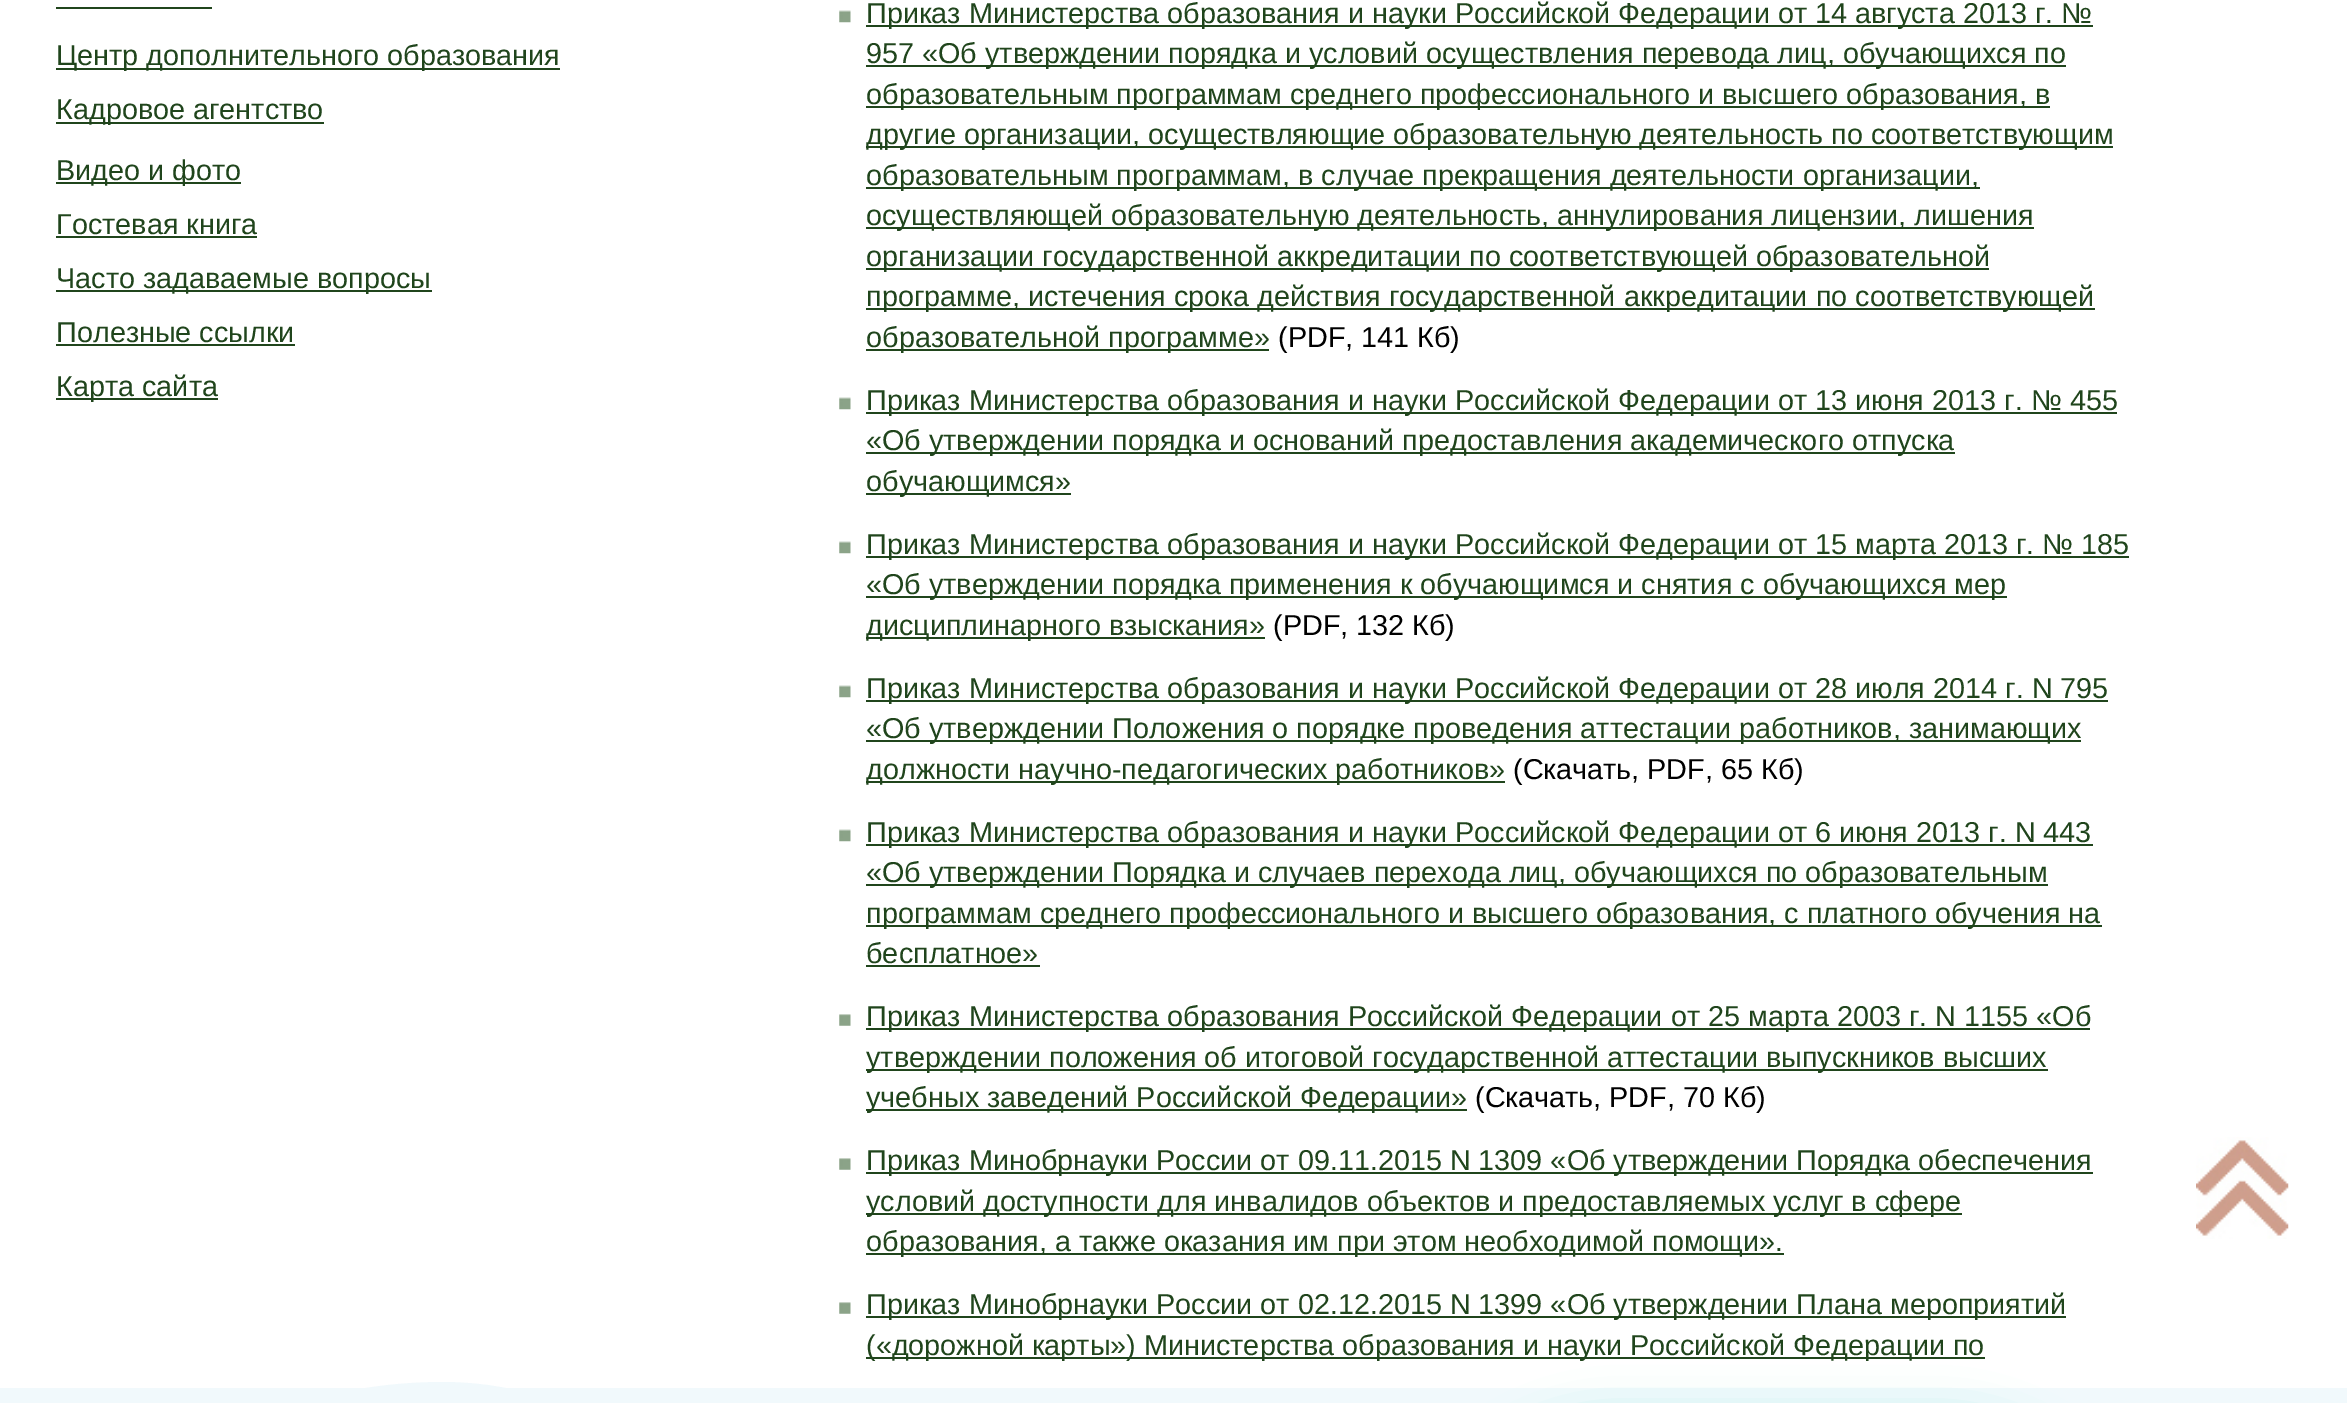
%!PS
<< /PageSize [2347 1403] /PageUsesTransparency true >> setpagedevice
/rgb { 3 { 255 div 3 1 roll } repeat setrgbcolor } def
/font { [ exch dup neg 0 0 3 -1 roll 0 0 ] selectfont } def
/alpha { dup .setfillconstantalpha .setstrokeconstantalpha } def
/roundrect { 5 dict begin { /r /h /w /y /x } { exch def } forall
  x r add y moveto x w add y 2 copy h add r arct x w add y h add x 1 index r arct
  x y h add x y r arct x y 2 copy exch w add exch r arct closepath end } def
/shadow { 12 dict begin { /a /b /q /h /w /y /x } { exch def } forall gsave /was 0 def
  9 -2 -9 { dup b mul 4 div /e exch def 1 sub .425 mul 2.718 exch exp 1 add a .99 .min exch div /now exch def
    1 1 now sub 1 was sub div sub alpha /was now def
    w h .min e 2 mul add 0 gt { x e sub y e sub w e 2 mul add h e 2 mul add
      q e add b .6 mul add w h .min 2 div e add .min 0 .max roundrect fill } if } for grestore end } def
/picture { 5 dict begin { /h /w /y /x /name } { exch def } forall
  gsave x y translate w h scale
  w h 8 [w 0 0 h 0 0] name (r) file false 3 colorimage grestore end } def
0 .pushpdf14devicefilter
0 1403 translate 1 -1 scale
4 setmiterlimit
255 255 255 rgb
0 0 2347 1403 rectfill
[
  [56 7 156 2 32 69 28]
  [56 68 504 2 32 69 28]
  [56 122 268 2 32 69 28]
  [56 182 185 2 32 69 28]
  [56 236 201 2 32 69 28]
  [56 290 376 2 32 69 28]
  [56 344 239 2 32 69 28]
  [56 398 162 2 32 69 28]
] { aload pop rgb rectfill } forall
(img/1.rgb) 839 10 12 13 picture
[
  [866 25 1227 2 32 69 28]
  [866 65 1200 2 32 69 28]
  [866 106 1184 2 32 69 28]
  [866 146 1247 2 32 69 28]
  [866 187 1114 2 32 69 28]
  [866 227 1168 2 32 69 28]
  [866 268 1123 2 32 69 28]
  [866 308 1229 2 32 69 28]
  [866 349 403 2 32 69 28]
] { aload pop rgb rectfill } forall
(img/1.rgb) 839 397 12 13 picture
[
  [866 412 1251 2 32 69 28]
  [866 452 1089 2 32 69 28]
  [866 493 205 2 32 69 28]
] { aload pop rgb rectfill } forall
(img/1.rgb) 839 541 12 13 picture
[
  [866 556 1263 2 32 69 28]
  [866 596 1141 2 32 69 28]
  [866 637 399 2 32 69 28]
] { aload pop rgb rectfill } forall
(img/1.rgb) 839 685 12 13 picture
[
  [866 700 1242 2 32 69 28]
  [866 740 1215 2 32 69 28]
  [866 781 639 2 32 69 28]
] { aload pop rgb rectfill } forall
(img/1.rgb) 839 829 12 13 picture
[
  [866 844 1227 2 32 69 28]
  [866 884 1182 2 32 69 28]
  [866 925 1236 2 32 69 28]
  [866 965 174 2 32 69 28]
] { aload pop rgb rectfill } forall
(img/2.rgb) 839 1014 12 12 picture
[
  [866 1028 1224 2 32 69 28]
  [866 1069 1182 2 32 69 28]
  [866 1109 601 2 32 69 28]
] { aload pop rgb rectfill } forall
(img/2.rgb) 839 1158 12 12 picture
[
  [866 1172 1227 2 32 69 28]
  [866 1213 1096 2 32 69 28]
  [866 1253 918 2 32 69 28]
] { aload pop rgb rectfill } forall
(img/2.rgb) 839 1302 12 12 picture
866 1316 1200 2 rectfill
866 1357 1119 2 rectfill
(img/3.rgb) 2196 1137 93 102 picture
241 249 252 rgb
0 1388 2347 15 rectfill
443 1382 moveto 606 1382 738 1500 738 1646 curveto 738 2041 lineto 0 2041 lineto 0 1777 lineto 0 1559 198 1382 443 1382 curveto closepath fill
197 242 237 rgb
1409 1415 738 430 374 22.5 1 shadow
/LiberationSans-Regular 28.8 font
32 69 28 rgb
[
  [(Центр дополнительного образования) 56 65]
  [(Кадровое агентство) 56 119]
  [(Видео и фото) 56 180]
  [(Гостевая книга) 56 234]
  [(Часто задаваемые вопросы) 56 288]
  [(Полезные ссылки) 56 342]
  [(Карта сайта) 56 396]
  [(Приказ Министерства образования и науки Российской Федерации от 14 августа 2013 г. №) 866 23]
  [(957 «Об утверждении порядка и условий осуществления перевода лиц, обучающихся по) 866 63]
  [(образовательным программам среднего профессионального и высшего образования, в) 866 104]
  [(другие организации, осуществляющие образовательную деятельность по соответствующим) 866 144]
  [(образовательным программам, в случае прекращения деятельности организации,) 866 185]
  [(осуществляющей образовательную деятельность, аннулирования лицензии, лишения) 866 225]
  [(организации государственной аккредитации по соответствующей образовательной) 866 266]
  [(программе, истечения срока действия государственной аккредитации по соответствующей) 866 306]
  [(образовательной программе») 866 347]
] { aload pop moveto show } forall
0 0 0 rgb
1278 347 moveto (\(PDF, 141 Кб\)) show
32 69 28 rgb
[
  [(Приказ Министерства образования и науки Российской Федерации от 13 июня 2013 г. № 455) 866 410]
  [(«Об утверждении порядка и оснований предоставления академического отпуска) 866 450]
  [(обучающимся») 866 491]
  [(Приказ Министерства образования и науки Российской Федерации от 15 марта 2013 г. № 185) 866 554]
  [(«Об утверждении порядка применения к обучающимся и снятия с обучающихся мер) 866 594]
  [(дисциплинарного взыскания») 866 635]
] { aload pop moveto show } forall
0 0 0 rgb
1273 635 moveto (\(PDF, 132 Кб\)) show
32 69 28 rgb
[
  [(Приказ Министерства образования и науки Российской Федерации от 28 июля 2014 г. N 795) 866 698]
  [(«Об утверждении Положения о порядке проведения аттестации работников, занимающих) 866 738]
  [(должности научно-педагогических работников») 866 779]
] { aload pop moveto show } forall
0 0 0 rgb
1513 779 moveto (\(Скачать, PDF, 65 Кб\)) show
32 69 28 rgb
[
  [(Приказ Министерства образования и науки Российской Федерации от 6 июня 2013 г. N 443) 866 842]
  [(«Об утверждении Порядка и случаев перехода лиц, обучающихся по образовательным) 866 882]
  [(программам среднего профессионального и высшего образования, с платного обучения на) 866 923]
  [(бесплатное») 866 963]
  [(Приказ Министерства образования Российской Федерации от 25 марта 2003 г. N 1155 «Об) 866 1026]
  [(утверждении положения об итоговой государственной аттестации выпускников высших) 866 1067]
  [(учебных заведений Российской Федерации») 866 1107]
] { aload pop moveto show } forall
0 0 0 rgb
1475 1107 moveto (\(Скачать, PDF, 70 Кб\)) show
32 69 28 rgb
[
  [(Приказ Минобрнауки России от 09.11.2015 N 1309 «Об утверждении Порядка обеспечения) 866 1170]
  [(условий доступности для инвалидов объектов и предоставляемых услуг в сфере) 866 1211]
  [(образования, а также оказания им при этом необходимой помощи».) 866 1251]
  [(Приказ Минобрнауки России от 02.12.2015 N 1399 «Об утверждении Плана мероприятий) 866 1314]
  [(\(«дорожной карты»\) Министерства образования и науки Российской Федерации по) 866 1355]
] { aload pop moveto show } forall
.poppdf14devicefilter showpage
